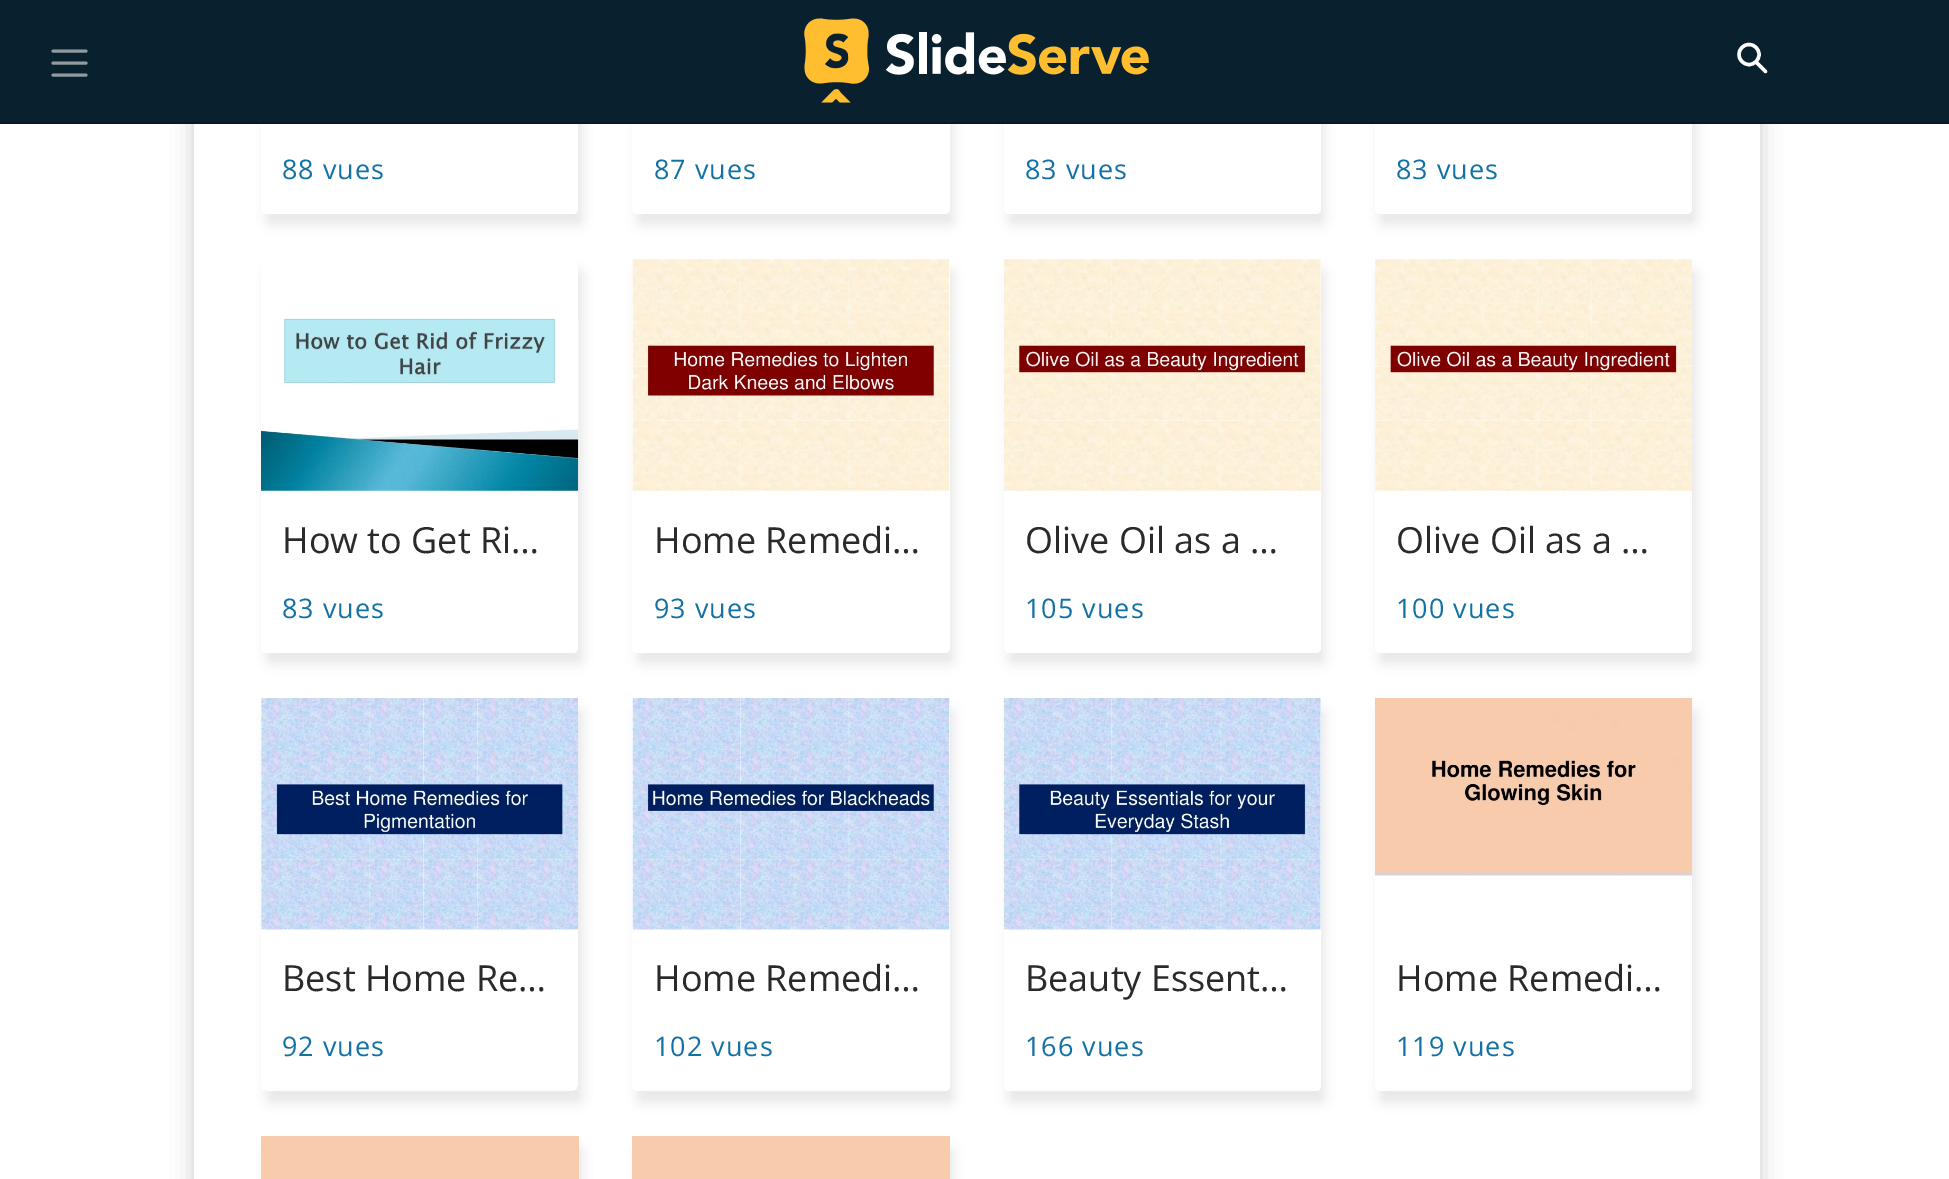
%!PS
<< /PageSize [1949 1179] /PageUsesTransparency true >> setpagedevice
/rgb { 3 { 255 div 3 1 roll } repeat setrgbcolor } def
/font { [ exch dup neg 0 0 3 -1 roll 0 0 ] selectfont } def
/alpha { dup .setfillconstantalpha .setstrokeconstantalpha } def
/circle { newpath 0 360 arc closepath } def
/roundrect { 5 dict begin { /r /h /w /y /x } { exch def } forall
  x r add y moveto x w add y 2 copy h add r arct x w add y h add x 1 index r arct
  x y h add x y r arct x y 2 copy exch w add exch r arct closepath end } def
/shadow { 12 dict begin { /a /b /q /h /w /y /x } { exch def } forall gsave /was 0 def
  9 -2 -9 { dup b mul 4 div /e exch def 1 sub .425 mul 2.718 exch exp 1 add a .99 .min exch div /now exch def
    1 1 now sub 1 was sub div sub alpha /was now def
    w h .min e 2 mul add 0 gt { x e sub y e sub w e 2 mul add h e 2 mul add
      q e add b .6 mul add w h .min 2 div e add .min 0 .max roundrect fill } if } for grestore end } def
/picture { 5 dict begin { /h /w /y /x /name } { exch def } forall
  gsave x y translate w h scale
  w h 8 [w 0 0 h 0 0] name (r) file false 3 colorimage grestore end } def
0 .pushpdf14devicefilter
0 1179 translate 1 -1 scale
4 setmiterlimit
255 255 255 rgb
0 0 1949 1179 rectfill
0 0 0 rgb
194 -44 1566 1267 11 11 0.2 shadow
255 255 255 rgb
194 124 1566 1055 rectfill
199 199 199 rgb
266 -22 317 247 5 5.5 0.4 shadow
255 255 255 rgb
261 -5 317 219 5 roundrect fill
199 199 199 rgb
637 -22 317 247 5 5.5 0.4 shadow
255 255 255 rgb
632 -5 318 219 5 roundrect fill
199 199 199 rgb
1008 -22 317 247 5 5.5 0.4 shadow
255 255 255 rgb
1004 -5 317 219 5 roundrect fill
199 199 199 rgb
1379 -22 318 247 5 5.5 0.4 shadow
255 255 255 rgb
1375 -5 317 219 5 roundrect fill
9 33 46 rgb
0 0 1949 122 rectfill
6 25 36 rgb
0 122 1949 2 rectfill
144 155 161 rgb
3 setlinewidth
1 setlinecap
53 51 moveto 86 51 lineto 53 63 moveto 86 63 lineto 53 75 moveto 86 75 lineto stroke
(img/1.rgb) 804 18 345 85 picture
255 255 255 rgb
3.4 setlinewidth
0 setlinecap
1749 54.5 10 circle stroke
1 setlinecap
1 setlinejoin
1765.5 71.5 moveto 1756.5 62.5 lineto stroke
199 199 199 rgb
266 270 317 394 5 5.5 0.4 shadow
255 255 255 rgb
261 259 317 394 5 roundrect fill
(img/2.rgb) 261 318 318 173 picture
199 199 199 rgb
637 270 317 394 5 5.5 0.4 shadow
255 255 255 rgb
632 259 318 394 5 roundrect fill
(img/3.rgb) 632 259 318 232 picture
199 199 199 rgb
1008 270 317 394 5 5.5 0.4 shadow
255 255 255 rgb
1004 259 317 394 5 roundrect fill
(img/4.rgb) 1003 259 318 232 picture
199 199 199 rgb
1379 270 318 394 5 5.5 0.4 shadow
255 255 255 rgb
1375 259 317 394 5 roundrect fill
(img/5.rgb) 1375 259 317 232 picture
gsave
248 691 moveto 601 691 lineto 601 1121 lineto 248 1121 lineto closepath 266 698 moveto 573 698 lineto 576 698 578 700 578 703 curveto 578 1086 lineto 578 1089 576 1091 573 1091 curveto 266 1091 lineto 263 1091 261 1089 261 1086 curveto 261 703 lineto 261 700 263 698 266 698 curveto closepath eoclip newpath
199 199 199 rgb
266 709 317 394 5 5.5 0.4 shadow
grestore
(img/6.rgb) 261 698 317 232 picture
199 199 199 rgb
637 709 317 394 5 5.5 0.4 shadow
255 255 255 rgb
632 698 318 393 5 roundrect fill
(img/7.rgb) 632 698 318 232 picture
199 199 199 rgb
1008 709 317 394 5 5.5 0.4 shadow
255 255 255 rgb
1004 698 317 393 5 roundrect fill
(img/8.rgb) 1003 698 318 232 picture
199 199 199 rgb
1379 709 318 394 5 5.5 0.4 shadow
255 255 255 rgb
1375 698 317 393 5 roundrect fill
(img/9.rgb) 1374 697 318 179 picture
199 199 199 rgb
266 1148 317 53 5 5.5 0.4 shadow
248 203 173 rgb
261 1136 318 43 rectfill
199 199 199 rgb
637 1148 317 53 5 5.5 0.4 shadow
248 203 173 rgb
632 1136 318 43 rectfill
/OpenSans-Regular 27 font
18 113 165 rgb
282 179 moveto 1 0 (88 vues) ashow
654 179 moveto 1 0 (87 vues) ashow
1025 179 moveto 1 0 (83 vues) ashow
1396 179 moveto 1 0 (83 vues) ashow
/OpenSans-Regular 36 font
43 42 42 rgb
282 553 moveto (How to Get Ri…) show
/OpenSans-Regular 27 font
18 113 165 rgb
282 618 moveto 1 0 (83 vues) ashow
/OpenSans-Regular 36 font
43 42 42 rgb
654 553 moveto (Home Remedi…) show
/OpenSans-Regular 27 font
18 113 165 rgb
654 618 moveto 1 0 (93 vues) ashow
/OpenSans-Regular 36 font
43 42 42 rgb
1025 553 moveto (Olive Oil as a …) show
/OpenSans-Regular 27 font
18 113 165 rgb
1025 618 moveto 1 0 (105 vues) ashow
/OpenSans-Regular 36 font
43 42 42 rgb
1396 553 moveto (Olive Oil as a …) show
/OpenSans-Regular 27 font
18 113 165 rgb
1396 618 moveto 1 0 (100 vues) ashow
/OpenSans-Regular 36 font
43 42 42 rgb
282 991 moveto (Best Home Re…) show
/OpenSans-Regular 27 font
18 113 165 rgb
282 1056 moveto 1 0 (92 vues) ashow
/OpenSans-Regular 36 font
43 42 42 rgb
654 991 moveto (Home Remedi…) show
/OpenSans-Regular 27 font
18 113 165 rgb
654 1056 moveto 1 0 (102 vues) ashow
/OpenSans-Regular 36 font
43 42 42 rgb
1025 991 moveto (Beauty Essent…) show
/OpenSans-Regular 27 font
18 113 165 rgb
1025 1056 moveto 1 0 (166 vues) ashow
/OpenSans-Regular 36 font
43 42 42 rgb
1396 991 moveto (Home Remedi…) show
/OpenSans-Regular 27 font
18 113 165 rgb
1396 1056 moveto 1 0 (119 vues) ashow
.poppdf14devicefilter showpage
